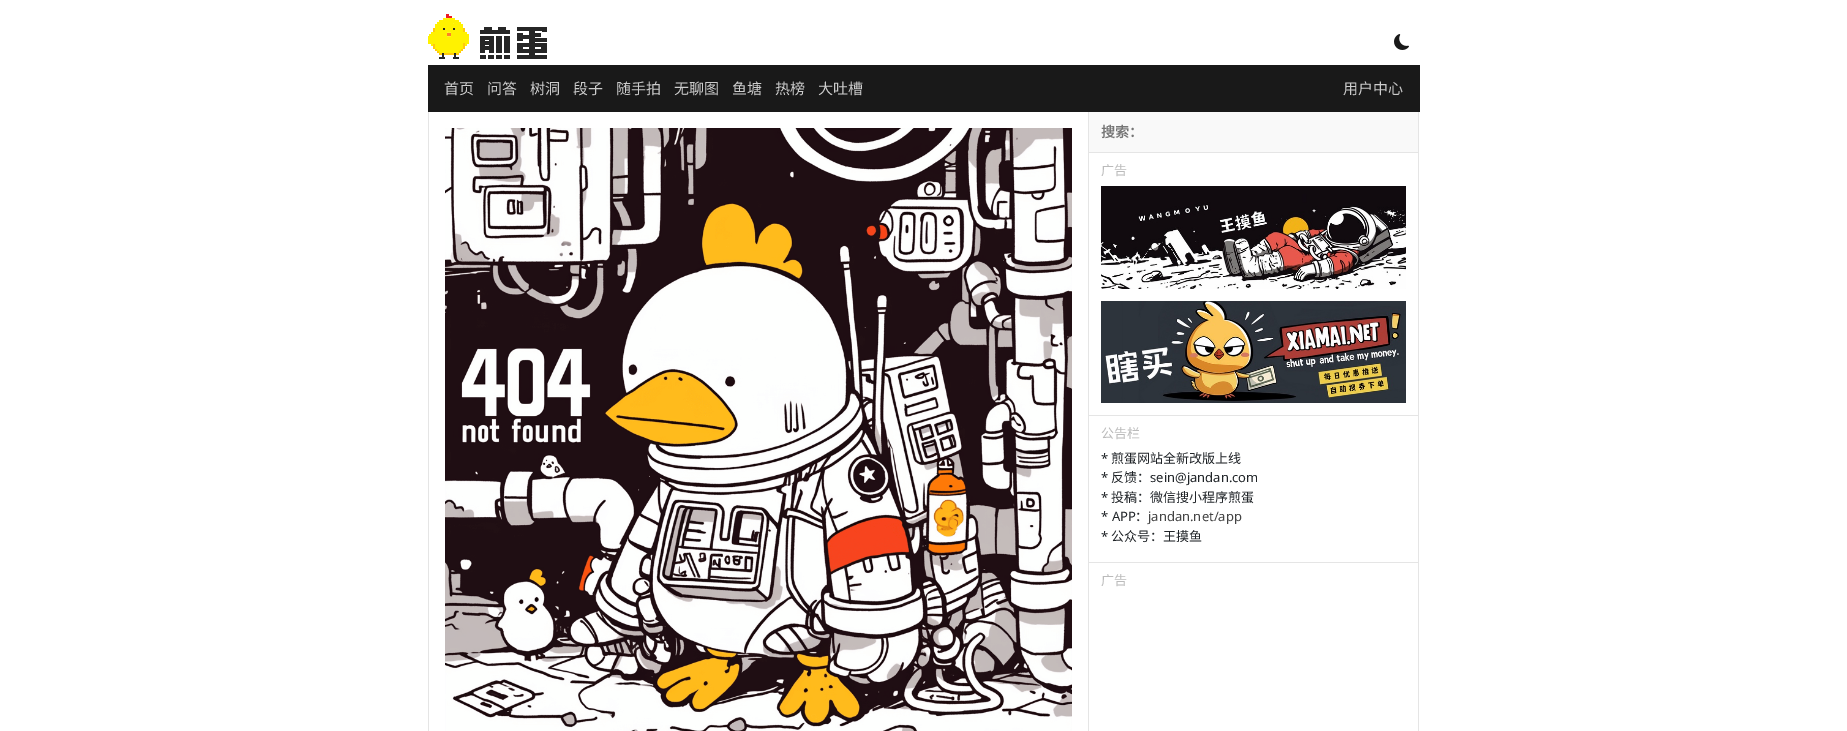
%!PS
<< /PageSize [1847 731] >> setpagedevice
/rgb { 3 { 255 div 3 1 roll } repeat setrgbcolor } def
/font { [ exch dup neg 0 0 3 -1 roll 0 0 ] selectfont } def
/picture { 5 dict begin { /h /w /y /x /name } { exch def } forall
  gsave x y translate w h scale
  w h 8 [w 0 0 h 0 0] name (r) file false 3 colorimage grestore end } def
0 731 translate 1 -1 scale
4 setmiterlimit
255 255 255 rgb
0 0 1847 731 rectfill
(img/1.rgb) 428 14 119 45 picture
(img/2.rgb) 1394 34 15 16 picture
[
  [428 65 992 47 25 25 25]
  [1088 112 1 619 229 229 229]
  [428 112 1 619 229 229 229]
] { aload pop rgb rectfill } forall
(img/3.rgb) 445 128 627 603 picture
[
  [1418 112 1 619 229 229 229]
  [1089 112 329 40 249 249 249]
  [1089 152 329 1 229 229 229]
] { aload pop rgb rectfill } forall
(img/4.rgb) 1101 186 305 103 picture
(img/5.rgb) 1101 301 305 102 picture
1089 415 329 1 rectfill
1089 562 329 1 rectfill
/NotoSansCJKSC-Regular 15 font
204 204 204 rgb
[
  [(首页) 444 94]
  [(问答) 487 94]
  [(树洞) 530 94]
  [(段子) 573 94]
  [(随手拍) 616 94]
  [(无聊图) 674 94]
  [(鱼塘) 732 94]
  [(热榜) 775 94]
  [(大吐槽) 818 94]
  [(用户中心) 1343 94]
] { aload pop moveto show } forall
/NotoSansCJKSC-Bold 14 font
117 117 117 rgb
1101 137 moveto (搜索：) show
/NotoSansCJKSC-Regular 13 font
187 187 187 rgb
1101 175 moveto (广告) show
1101 438 moveto (公告栏) show
/NotoSans-Regular 13 font
33 37 41 rgb
1101 463 moveto (*) show
/NotoSansCJKSC-Regular 13 font
1111 463 moveto (煎蛋网站全新改版上线) show
/NotoSans-Regular 13 font
1101 482 moveto (*) show
/NotoSansCJKSC-Regular 13 font
1111 482 moveto (反馈：) show
/NotoSans-Regular 13 font
1150 482 moveto (sein@jandan.com) show
1101 502 moveto (*) show
/NotoSansCJKSC-Regular 13 font
1111 502 moveto (投稿：微信搜小程序煎蛋) show
/NotoSans-Regular 13 font
1101 521 moveto (* APP) show
/NotoSansCJKSC-Regular 13 font
1135 521 moveto (：) show
/NotoSans-Regular 13 font
68 68 68 rgb
1148 521 moveto (jandan.net/app) show
33 37 41 rgb
1101 541 moveto (*) show
/NotoSansCJKSC-Regular 13 font
1111 541 moveto (公众号：王摸鱼) show
187 187 187 rgb
1101 585 moveto (广告) show
showpage
